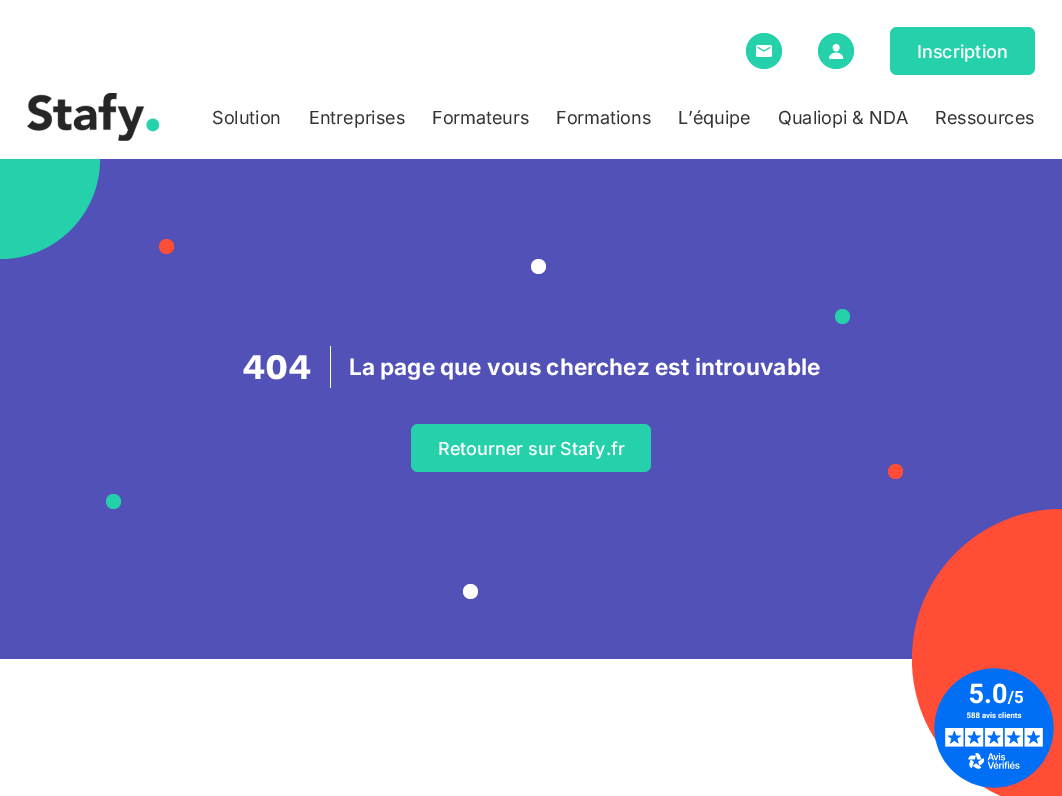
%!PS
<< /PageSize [1062 796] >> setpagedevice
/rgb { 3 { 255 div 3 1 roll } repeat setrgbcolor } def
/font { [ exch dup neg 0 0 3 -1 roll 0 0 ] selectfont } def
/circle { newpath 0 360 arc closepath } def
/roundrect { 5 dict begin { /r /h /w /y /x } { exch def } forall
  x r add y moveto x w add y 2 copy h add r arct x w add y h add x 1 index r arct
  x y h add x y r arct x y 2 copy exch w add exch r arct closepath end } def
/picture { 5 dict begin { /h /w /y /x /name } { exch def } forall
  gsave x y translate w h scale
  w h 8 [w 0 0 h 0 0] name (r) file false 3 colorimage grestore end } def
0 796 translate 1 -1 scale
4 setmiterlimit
255 255 255 rgb
0 0 1062 796 rectfill
82 81 183 rgb
0 159 1062 500 rectfill
37 209 171 rgb
0 159 100 circle fill
255 255 255 rgb
0 59 55 16 rectfill
37 209 171 rgb
764 51 18 circle fill
(img/1.rgb) 756 45 16 12 picture
836 51 18 circle fill
(img/2.rgb) 829 44 15 15 picture
890 27 145 48 7 roundrect fill
255 255 255 rgb
0 75 100 84 rectfill
(img/3.rgb) 27 93 132 48 picture
255 77 54 rgb
166.5 246.5 7.5 circle fill
255 255 255 rgb
538.5 266.5 7.5 circle fill
37 209 171 rgb
842.5 316.5 7.5 circle fill
255 255 255 rgb
330 346 1 42 rectfill
37 209 171 rgb
411 424 240 48 7 roundrect fill
255 77 54 rgb
895.5 471.5 7.5 circle fill
37 209 171 rgb
113.5 501.5 7.5 circle fill
255 255 255 rgb
470.5 591.5 7.5 circle fill
255 77 54 rgb
1062 659 150 circle fill
(img/4.rgb) 934 668 120 120 picture
/Inter-Medium 18 font
255 255 255 rgb
917 58 moveto (Inscription) show
/Inter-Regular 18 font
53 52 52 rgb
[
  [(Solution) 212 124]
  [(Entreprises) 309 124]
  [(Formateurs) 432 124]
  [(Formations) 556 124]
  [(L’équipe) 678 124]
  [(Qualiopi & NDA) 778 124]
  [(Ressources) 935 124]
] { aload pop moveto show } forall
/WorkSans-Bold 36 font
255 255 255 rgb
242 379 moveto (404) show
/Inter-Bold 22.5 font
349 375 moveto (La page que vous cherchez est introuvable) show
/Inter-Medium 18 font
438 455 moveto (Retourner sur Stafy.fr) show
showpage
